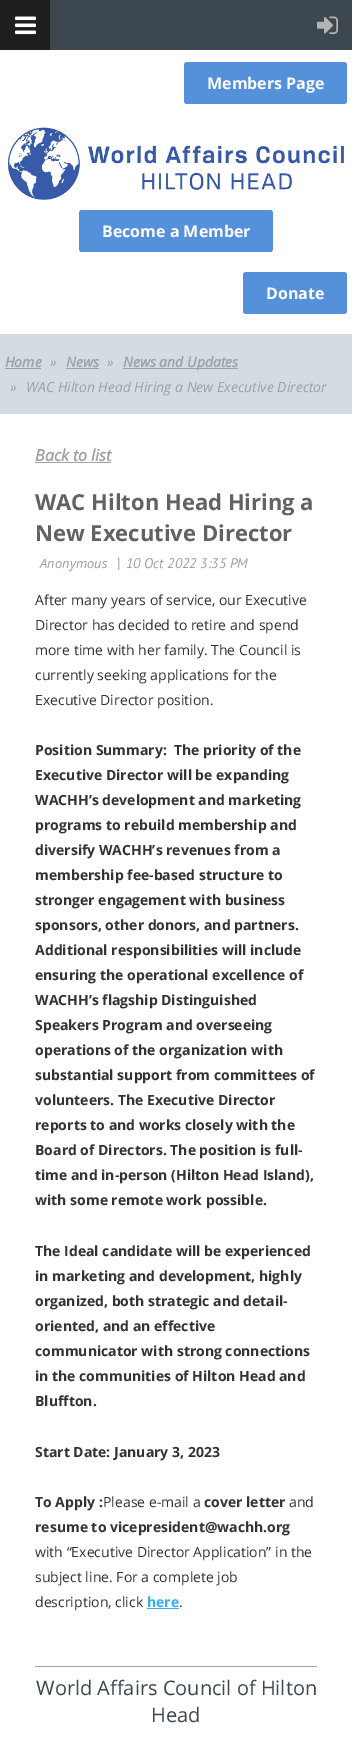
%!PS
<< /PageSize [352 1747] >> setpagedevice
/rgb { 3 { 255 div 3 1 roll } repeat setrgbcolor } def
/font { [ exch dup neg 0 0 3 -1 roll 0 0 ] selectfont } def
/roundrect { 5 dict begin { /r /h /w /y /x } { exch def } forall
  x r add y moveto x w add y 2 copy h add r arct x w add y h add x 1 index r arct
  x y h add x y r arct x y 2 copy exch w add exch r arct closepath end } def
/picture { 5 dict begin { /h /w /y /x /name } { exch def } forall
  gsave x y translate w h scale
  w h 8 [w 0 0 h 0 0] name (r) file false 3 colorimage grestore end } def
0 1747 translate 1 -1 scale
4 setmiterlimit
255 255 255 rgb
0 0 352 1747 rectfill
60 71 79 rgb
50 0 302 50 rectfill
31 31 31 rgb
0 0 50 50 rectfill
(img/1.rgb) 15 16 21 19 picture
(img/2.rgb) 317 16 21 18 picture
85 145 218 rgb
184 62 163 42 3 roundrect fill
(img/3.rgb) 7 127 337 74 picture
79 210 194 42 3 roundrect fill
243 272 104 42 3 roundrect fill
[
  [0 334 352 80 211 220 226]
  [5 368 36 1 157 161 163]
  [66 368 33 1 157 161 163]
  [123 368 115 1 157 161 163]
  [35 462 76 1 157 161 163]
  [147 1608 32 1 54 175 240]
  [35 1666 282 1 157 161 163]
] { aload pop rgb rectfill } forall
/OpenSans-Bold 16 font
255 255 255 rgb
[
  [(Members Page) 207 89]
  [(Become a Member) 102 237]
  [(Donate) 266 299]
] { aload pop moveto show } forall
/OpenSans-BoldItalic 14 font
157 161 163 rgb
5 367 moveto (Home) show
/OpenSans-Italic 14 font
50 367 moveto (») show
/OpenSans-BoldItalic 14 font
66 367 moveto (News) show
/OpenSans-Italic 14 font
107 367 moveto (») show
/OpenSans-BoldItalic 14 font
123 367 moveto (News and Updates) show
/OpenSans-Italic 14 font
10 392 moveto (») show
26 392 moveto (WAC Hilton Head Hiring a New Executive Director) show
/OpenSans-BoldItalic 16 font
35 461 moveto (Back to list) show
/OpenSans-Bold 22 font
98 98 98 rgb
35 510 moveto (WAC Hilton Head Hiring a) show
35 541 moveto (New Executive Director) show
/OpenSans-Italic 13 font
157 161 163 rgb
40 568 moveto (Anonymous) show
/PTSans-Regular 15 font
117 568 moveto (|) show
/PTSans-Italic 14 font
126 568 moveto (10 Oct 2022 3:35 PM) show
/OpenSans-Regular 14 font
51 51 51 rgb
[
  [(After many years of service, our Executive) 35 605]
  [(Director has decided to retire and spend) 35 630]
  [(more time with her family. The Council is) 35 655]
  [(currently seeking applications for the) 35 680]
  [(Executive Director position.) 35 705]
] { aload pop moveto show } forall
/OpenSans-Bold 14 font
[
  [(Position Summary:  The priority of the) 35 755]
  [(Executive Director will be expanding) 35 780]
  [(WACHH’s development and marketing) 35 805]
  [(programs to rebuild membership and) 35 830]
  [(diversify WACHH’s revenues from a) 35 855]
  [(membership fee-based structure to) 35 880]
  [(stronger engagement with business) 35 905]
  [(sponsors, other donors, and partners.) 35 930]
  [(Additional responsibilities will include) 35 955]
  [(ensuring the operational excellence of) 35 980]
  [(WACHH’s flagship Distinguished) 35 1005]
  [(Speakers Program and overseeing) 35 1030]
  [(operations of the organization with) 35 1055]
  [(substantial support from committees of) 35 1080]
  [(volunteers. The Executive Director) 35 1105]
  [(reports to and works closely with the) 35 1130]
  [(Board of Directors. The position is full-) 35 1155]
  [(time and in-person \(Hilton Head Island\),) 35 1180]
  [(with some remote work possible.) 35 1205]
  [(The Ideal candidate will be experienced) 35 1256]
  [(in marketing and development, highly) 35 1281]
  [(organized, both strategic and detail-) 35 1306]
  [(oriented, and an effective) 35 1331]
  [(communicator with strong connections) 35 1356]
  [(in the communities of Hilton Head and) 35 1381]
  [(Bluffton.) 35 1406]
  [(Start Date: January 3, 2023) 35 1457]
  [(To Apply :) 35 1507]
] { aload pop moveto show } forall
/OpenSans-Regular 14 font
103 1507 moveto (Please e-mail a) show
/OpenSans-Bold 14 font
204 1507 moveto (cover letter) show
/OpenSans-Regular 14 font
289 1507 moveto (and) show
/OpenSans-Bold 14 font
35 1532 moveto (resume to vicepresident@wachh.org) show
/OpenSans-Regular 14 font
[
  [(with “Executive Director Application” in the) 35 1557]
  [(subject line. For a complete job) 35 1582]
  [(description, click) 35 1607]
] { aload pop moveto show } forall
/OpenSans-Bold 14 font
54 175 240 rgb
147 1607 moveto (here) show
/OpenSans-Regular 14 font
51 51 51 rgb
179 1607 moveto (.) show
/OpenSans-Regular 20 font
60 71 79 rgb
36 1695 moveto (World Affairs Council of Hilton) show
151 1722 moveto (Head) show
showpage
